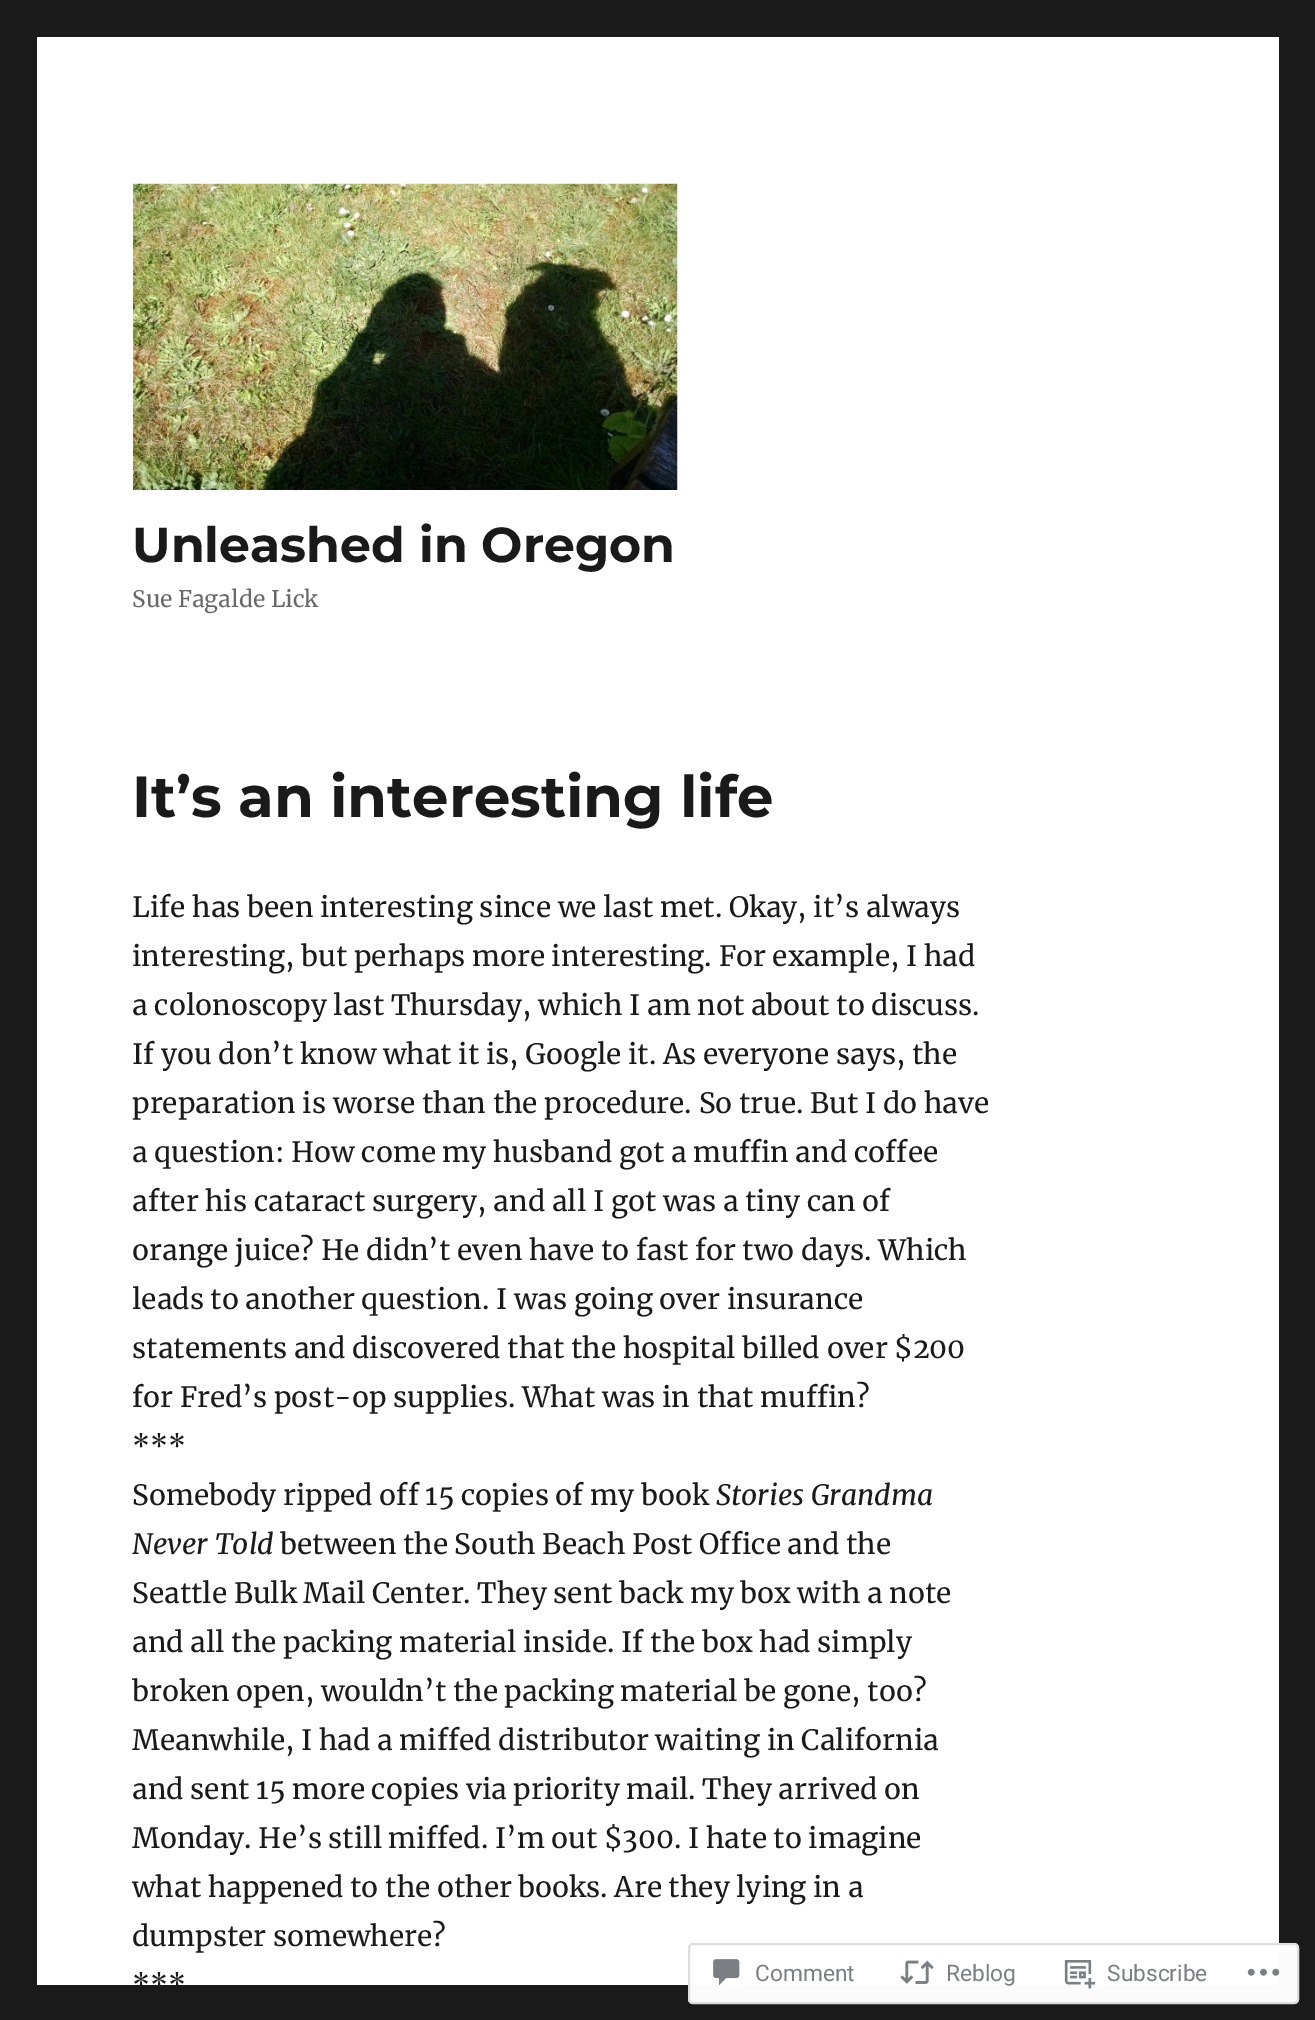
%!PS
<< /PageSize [1315 2020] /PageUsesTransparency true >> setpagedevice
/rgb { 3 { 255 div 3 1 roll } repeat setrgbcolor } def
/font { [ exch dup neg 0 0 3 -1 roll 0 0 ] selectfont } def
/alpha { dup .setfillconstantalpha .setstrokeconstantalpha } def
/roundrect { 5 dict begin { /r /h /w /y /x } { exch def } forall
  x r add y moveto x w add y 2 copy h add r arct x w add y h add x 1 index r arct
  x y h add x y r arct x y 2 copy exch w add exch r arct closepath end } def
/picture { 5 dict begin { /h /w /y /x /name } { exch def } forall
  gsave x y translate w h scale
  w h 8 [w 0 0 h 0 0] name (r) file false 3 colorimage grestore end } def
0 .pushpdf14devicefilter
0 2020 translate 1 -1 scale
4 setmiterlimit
26 26 26 rgb
0 0 1315 2020 rectfill
255 255 255 rgb
37 37 1242 1948 rectfill
(img/1.rgb) 133 183 545 307 picture
0.98 alpha
688 1943 611 61 5 roundrect fill
220 220 222 rgb
2 setlinewidth
689 1944 609 59 4 roundrect stroke
1 alpha
(img/2.rgb) 713 1959 27 27 picture
(img/3.rgb) 900 1960 34 24 picture
(img/4.rgb) 1064 1960 32 29 picture
(img/5.rgb) 1247 1968 33 8 picture
/Montserrat-Thin 49 font
26 26 26 rgb
132 562 moveto (Unleashed in Oregon) show
/Merriweather-Regular 22.75 font
104 104 104 rgb
132 607 moveto (Sue Fagalde Lick) show
/Montserrat-Thin 57.75 font
26 26 26 rgb
132 817 moveto (It’s an interesting life) show
/Merriweather-Regular 28 font
[
  [(Life has been interesting since we last met. Okay, it’s always) 132 917]
  [(interesting, but perhaps more interesting. For example, I had) 132 966]
  [(a colonoscopy last Thursday, which I am not about to discuss.) 132 1015]
  [(If you don’t know what it is, Google it. As everyone says, the) 132 1064]
  [(preparation is worse than the procedure. So true. But I do have) 132 1113]
  [(a question: How come my husband got a muffin and coffee) 132 1162]
  [(after his cataract surgery, and all I got was a tiny can of) 132 1211]
  [(orange juice? He didn’t even have to fast for two days. Which) 132 1260]
  [(leads to another question. I was going over insurance) 132 1309]
  [(statements and discovered that the hospital billed over $200) 132 1358]
  [(for Fred’s post-op supplies. What was in that muffin?) 132 1407]
  [(***) 132 1456]
  [(Somebody ripped off 15 copies of my book) 132 1505]
] { aload pop moveto show } forall
/Merriweather-Italic 28 font
716 1505 moveto (Stories Grandma) show
132 1554 moveto (Never Told) show
/Merriweather-Regular 28 font
[
  [(between the South Beach Post Office and the) 280 1554]
  [(Seattle Bulk Mail Center. They sent back my box with a note) 132 1603]
  [(and all the packing material inside. If the box had simply) 132 1652]
  [(broken open, wouldn’t the packing material be gone, too?) 132 1701]
  [(Meanwhile, I had a miffed distributor waiting in California) 132 1750]
  [(and sent 15 more copies via priority mail. They arrived on) 132 1799]
  [(Monday. He’s still miffed. I’m out $300. I hate to imagine) 132 1848]
  [(what happened to the other books. Are they lying in a) 132 1897]
  [(dumpster somewhere?) 132 1946]
  [(***) 132 1995]
] { aload pop moveto show } forall
/Roboto-Regular 22.75 font
123 127 133 rgb
[
  [(Comment) 755 1981]
  [(Reblog) 946 1981]
  [(Subscribe) 1107 1981]
] { aload pop moveto show } forall
.poppdf14devicefilter showpage
